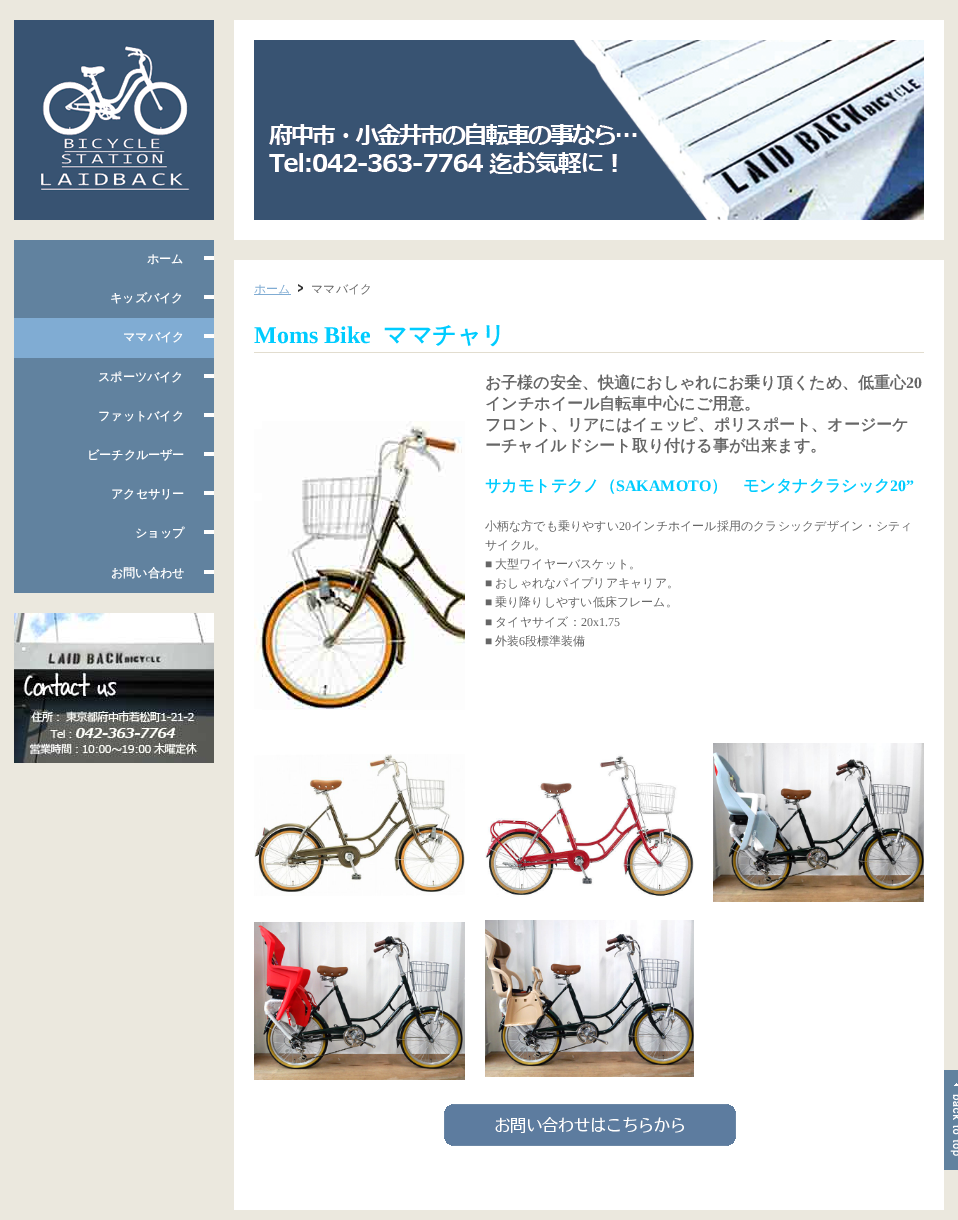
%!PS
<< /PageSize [958 1220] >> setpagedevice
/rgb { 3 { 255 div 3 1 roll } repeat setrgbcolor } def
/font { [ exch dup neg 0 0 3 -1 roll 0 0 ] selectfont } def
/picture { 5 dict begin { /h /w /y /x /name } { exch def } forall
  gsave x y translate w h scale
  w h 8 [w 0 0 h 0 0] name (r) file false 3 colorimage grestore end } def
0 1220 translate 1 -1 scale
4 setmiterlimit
235 232 222 rgb
0 0 958 1220 rectfill
(img/1.rgb) 14 20 200 200 picture
[
  [14 240 200 353 97 130 159]
  [204 256 10 4 255 255 255]
  [204 295 10 4 255 255 255]
  [14 318 200 40 128 172 211]
  [204 334 10 4 255 255 255]
  [204 374 10 4 255 255 255]
  [204 413 10 4 255 255 255]
  [204 452 10 4 255 255 255]
  [204 491 10 4 255 255 255]
  [204 530 10 4 255 255 255]
  [204 570 10 4 255 255 255]
] { aload pop rgb rectfill } forall
(img/2.rgb) 14 613 200 150 picture
234 20 710 220 rectfill
(img/3.rgb) 254 40 670 180 picture
234 260 710 950 rectfill
128 172 211 rgb
254 294 37 1 rectfill
(img/4.rgb) 298 284 5 8 picture
226 221 207 rgb
254 352 670 1 rectfill
(img/5.rgb) 254 421 211 289 picture
(img/6.rgb) 254 754 211 142 picture
(img/7.rgb) 254 922 211 158 picture
(img/8.rgb) 485 754 209 143 picture
(img/9.rgb) 485 920 209 157 picture
(img/10.rgb) 713 743 211 159 picture
(img/11.rgb) 444 1104 292 42 picture
(img/12.rgb) 944 1070 14 100 picture
/WenQuanYiZenHei-Bold 12 font
255 255 255 rgb
[
  [(ホーム) 147 263]
  [(キッズバイク) 110 302]
  [(ママバイク) 123 341]
  [(スポーツバイク) 98 381]
  [(ファットバイク) 98 420]
  [(ビーチクルーザー) 87 459]
  [(アクセサリー) 111 498]
  [(ショップ) 135 537]
  [(お問い合わせ) 111 577]
] { aload pop moveto show } forall
/WenQuanYiZenHei-Medium 12 font
128 172 211 rgb
254 293 moveto (ホーム) show
102 102 102 rgb
311 293 moveto (ママバイク) show
/LiberationSerif-Bold 24 font
0 204 255 rgb
254 343 moveto (Moms Bike) show
/WenQuanYiZenHei-Bold 24 font
383 343 moveto (ママチャリ) show
/WenQuanYiZenHei-Bold 16 font
102 102 102 rgb
485 388 moveto (お子様の安全、快適におしゃれにお乗り頂くため、低重心) show
/LiberationSerif-Bold 16 font
906 388 moveto (20) show
/WenQuanYiZenHei-Bold 16 font
[
  [(インチホイール自転車中心にご用意。) 485 409]
  [(フロント、リアにはイェッピ、ポリスポート、オージーケ) 485 430]
  [(ーチャイルドシート取り付ける事が出来ます。) 485 451]
] { aload pop moveto show } forall
0 204 255 rgb
485 491 moveto (サカモトテクノ（) show
/LiberationSerif-Bold 16 font
616 491 moveto (SAKAMOTO) show
/WenQuanYiZenHei-Bold 16 font
711 491 moveto (）　モンタナクラシック) show
/LiberationSerif-Bold 16 font
890 491 moveto (20”) show
/WenQuanYiZenHei-Medium 12 font
102 102 102 rgb
485 530 moveto (小柄な方でも乗りやすい) show
/LiberationSerif-Regular 12 font
619 530 moveto (20) show
/WenQuanYiZenHei-Medium 12 font
631 530 moveto (インチホイール採用のクラシックデザイン・シティ) show
485 549 moveto (サイクル。) show
/LiberationSerif-Regular 12 font
485 568 moveto (■) show
/WenQuanYiZenHei-Medium 12 font
495 568 moveto (大型ワイヤーバスケット。) show
/LiberationSerif-Regular 12 font
485 587 moveto (■) show
/WenQuanYiZenHei-Medium 12 font
495 587 moveto (おしゃれなパイプリアキャリア。) show
/LiberationSerif-Regular 12 font
485 606 moveto (■) show
/WenQuanYiZenHei-Medium 12 font
495 606 moveto (乗り降りしやすい低床フレーム。) show
/LiberationSerif-Regular 12 font
485 626 moveto (■) show
/WenQuanYiZenHei-Medium 12 font
495 626 moveto (タイヤサイズ：) show
/LiberationSerif-Regular 12 font
581 626 moveto (20x1.75) show
485 645 moveto (■) show
/WenQuanYiZenHei-Medium 12 font
495 645 moveto (外装) show
/LiberationSerif-Regular 12 font
519 645 moveto (6) show
/WenQuanYiZenHei-Medium 12 font
525 645 moveto (段標準装備) show
showpage
